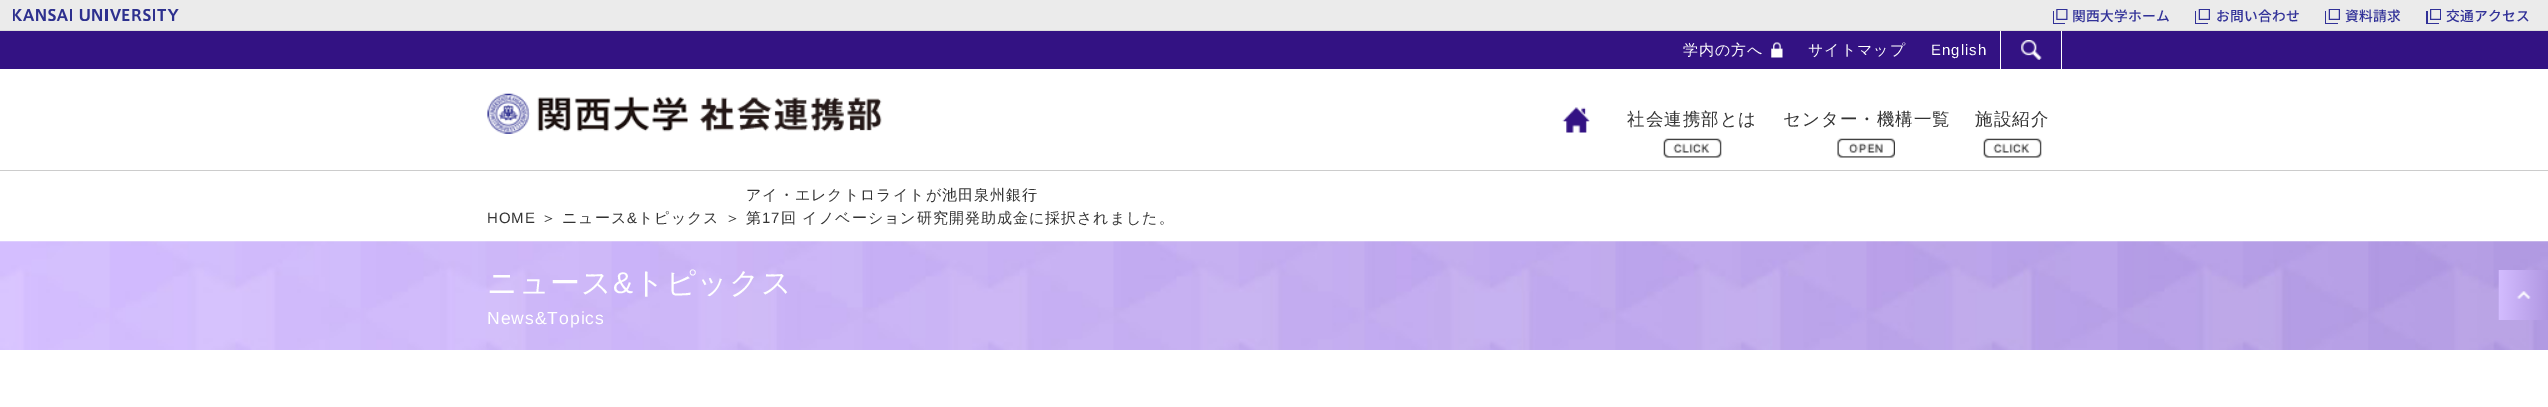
%!PS
<< /PageSize [2548 407] >> setpagedevice
/rgb { 3 { 255 div 3 1 roll } repeat setrgbcolor } def
/font { [ exch dup neg 0 0 3 -1 roll 0 0 ] selectfont } def
/picture { 5 dict begin { /h /w /y /x /name } { exch def } forall
  gsave x y translate w h scale
  w h 8 [w 0 0 h 0 0] name (r) file false 3 colorimage grestore end } def
0 407 translate 1 -1 scale
4 setmiterlimit
255 255 255 rgb
0 0 2548 407 rectfill
235 235 235 rgb
0 0 2548 30 rectfill
220 220 220 rgb
0 30 2548 1 rectfill
(img/1.rgb) 13 9 166 12 picture
(img/2.rgb) 2053 9 15 15 picture
(img/3.rgb) 2195 9 15 15 picture
(img/3.rgb) 2325 9 15 15 picture
(img/4.rgb) 2426 9 15 15 picture
204 204 204 rgb
0 170 2548 1 rectfill
51 18 131 rgb
0 31 2548 38 rectfill
(img/5.rgb) 1771 42 12 16 picture
255 255 255 rgb
2061 31 1 38 rectfill
2000 31 1 38 rectfill
(img/6.rgb) 2021 40 21 20 picture
(img/7.rgb) 487 93 395 41 picture
(img/8.rgb) 1562 107 28 26 picture
(img/9.rgb) 1663 138 59 20 picture
(img/10.rgb) 1837 138 58 20 picture
(img/11.rgb) 1983 138 59 20 picture
(img/12.rgb) 0 241 2548 109 picture
(img/13.rgb) 2498 270 50 50 picture
/NotoSansJP-Thin 13.75 font
49 49 152 rgb
2072 21 moveto 0.25 0 (関西大学ホーム) ashow
2216 21 moveto 0.25 0 (お問い合わせ) ashow
2345 21 moveto 0.25 0 (資料請求) ashow
2446 21 moveto 0.25 0 (交通アクセス) ashow
/WenQuanYiZenHei-Medium 15 font
255 255 255 rgb
1683 55 moveto 1 0 (学内の方へ) ashow
1808 55 moveto 1 0 (サイトマップ) ashow
/LiberationSans-Regular 15 font
1931 55 moveto 1 0 (English) ashow
/WenQuanYiZenHei-Medium 17.5 font
51 51 51 rgb
1627 125 moveto 1 0 (社会連携部とは) ashow
1783 125 moveto 1 0 (センター・機構一覧) ashow
1975 125 moveto 1 0 (施設紹介) ashow
/LiberationSans-Regular 15 font
487 223 moveto 1 0 (HOME) ashow
/WenQuanYiZenHei-Medium 15 font
541 223 moveto 1 0 (＞) ashow
562 223 moveto 1 0 (ニュース) ashow
/LiberationSans-Regular 15 font
627 223 moveto 1 0 (&) ashow
/WenQuanYiZenHei-Medium 15 font
638 223 moveto 1 0 (トピックス ＞) ashow
746 200 moveto 1 0 (アイ・エレクトロライトが池田泉州銀行) ashow
746 223 moveto 1 0 (第) ashow
/LiberationSans-Regular 15 font
762 223 moveto 1 0 (17) ashow
/WenQuanYiZenHei-Medium 15 font
781 223 moveto 1 0 (回 イノベーション研究開発助成金に採択されました。) ashow
/WenQuanYiZenHei-Medium 30 font
255 255 255 rgb
487 293 moveto 1 0 (ニュース) ashow
/LiberationSans-Regular 30 font
613 293 moveto 1 0 (&) ashow
/WenQuanYiZenHei-Medium 30 font
634 293 moveto 1 0 (トピックス) ashow
/LiberationSans-Regular 17.5 font
487 324 moveto 1 0 (News&Topics) ashow
showpage
